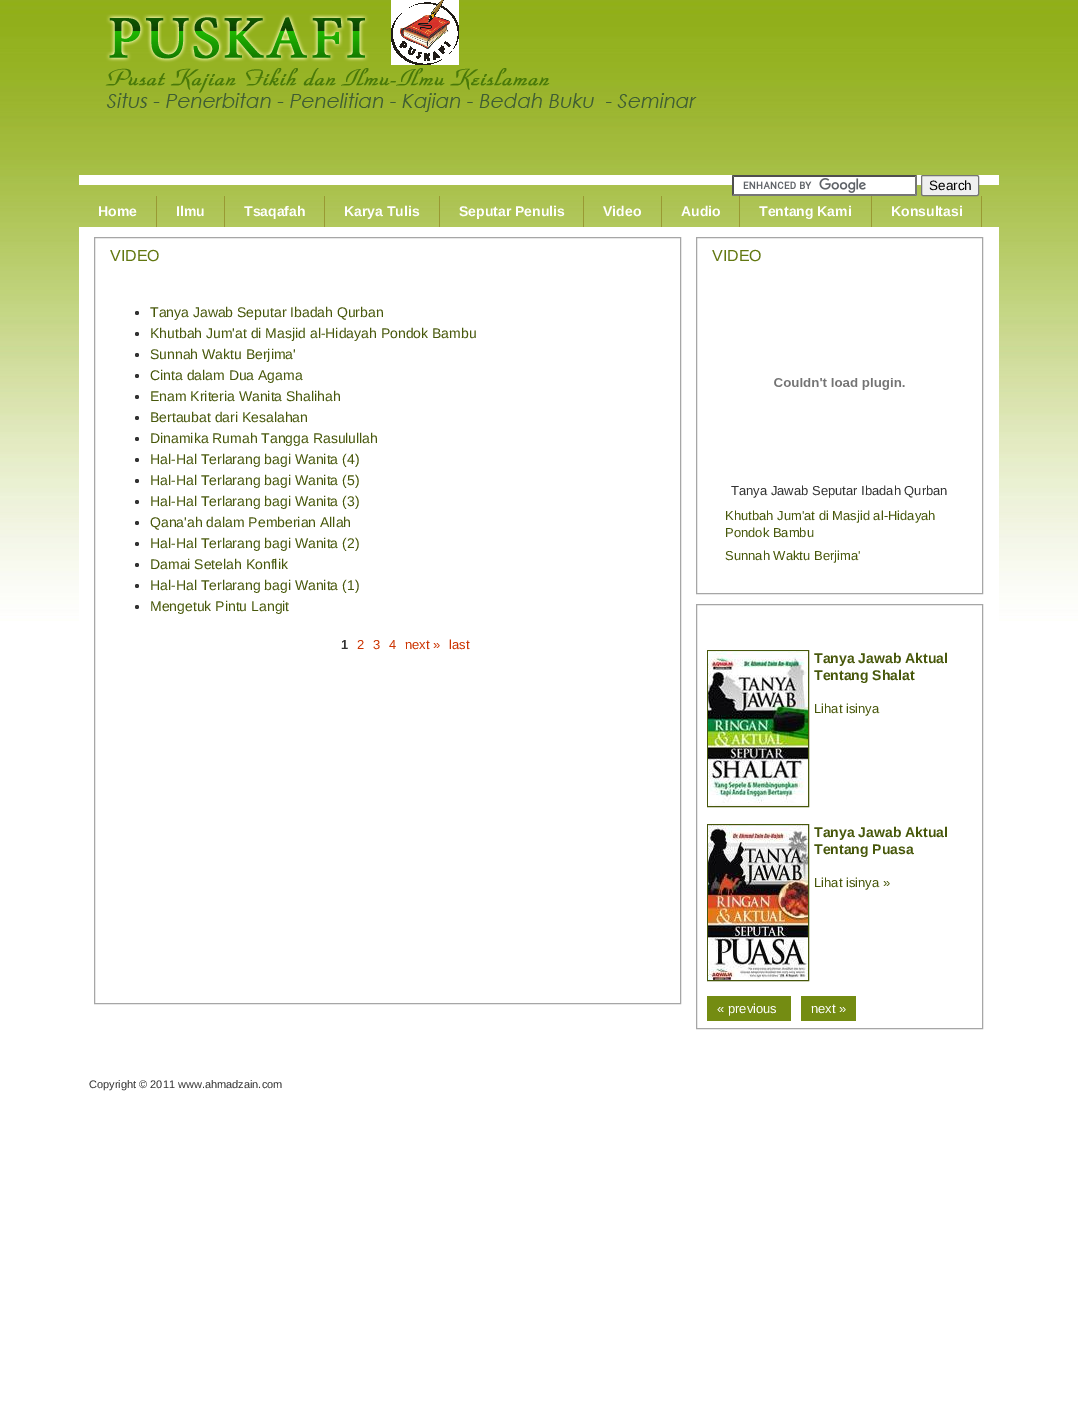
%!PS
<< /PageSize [1078 1402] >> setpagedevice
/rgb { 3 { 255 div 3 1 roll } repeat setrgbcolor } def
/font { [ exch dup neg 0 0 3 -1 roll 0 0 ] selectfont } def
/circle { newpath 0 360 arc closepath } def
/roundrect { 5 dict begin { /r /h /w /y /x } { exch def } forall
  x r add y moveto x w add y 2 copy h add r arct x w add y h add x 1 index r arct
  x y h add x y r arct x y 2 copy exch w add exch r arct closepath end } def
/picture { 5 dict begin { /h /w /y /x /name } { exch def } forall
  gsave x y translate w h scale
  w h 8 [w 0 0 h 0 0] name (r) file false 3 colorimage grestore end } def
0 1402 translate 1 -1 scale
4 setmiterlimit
255 255 255 rgb
0 0 1078 1402 rectfill
(img/1.rgb) 0 0 1078 621 picture
(img/2.rgb) 59 0 960 621 picture
79 175 920 10 rectfill
(img/3.rgb) 105 0 592 112 picture
732 185 185 11 rectfill
(img/4.rgb) 743 178 123 15 picture
79 79 79 rgb
732 175 moveto 917 175 lineto 915 177 lineto 734 177 lineto closepath fill
118 118 118 rgb
917 175 moveto 917 196 lineto 915 194 lineto 915 177 lineto closepath fill
917 196 moveto 732 196 lineto 734 194 lineto 915 194 lineto closepath fill
79 79 79 rgb
732 196 moveto 732 175 lineto 734 177 lineto 734 194 lineto closepath fill
239 239 239 rgb
921.5 175.5 57 20 1.5 roundrect gsave fill grestore
118 118 118 rgb
stroke
[
  [156 196 1 31 153 153 51]
  [224 196 1 31 153 153 51]
  [324 196 1 31 153 153 51]
  [439 196 1 31 153 153 51]
  [583 196 1 31 153 153 51]
  [661 196 1 31 153 153 51]
  [739 196 1 31 153 153 51]
  [871 196 1 31 153 153 51]
  [981 196 1 31 153 153 51]
  [79 227 920 394 255 255 255]
] { aload pop rgb rectfill } forall
166 166 166 rgb
94.5 237.5 586 766 rectstroke
51 51 51 rgb
137 313 2 circle fill
137 334 2 circle fill
137 355 2 circle fill
137 376 2 circle fill
137 397 2 circle fill
137 418 2 circle fill
137 439 2 circle fill
137 460 2 circle fill
137 481 2 circle fill
137 502 2 circle fill
137 523 2 circle fill
137 544 2 circle fill
137 565 2 circle fill
137 586 2 circle fill
137 607 2 circle fill
166 166 166 rgb
696.5 237.5 286 356 rectstroke
(img/5.rgb) 774 378 131 12 picture
696.5 604.5 286 424 rectstroke
71 87 10 rgb
707.5 650.5 101 156 rectstroke
(img/6.rgb) 708 651 100 155 picture
707.5 824.5 101 156 rectstroke
(img/7.rgb) 708 825 100 155 picture
116 140 18 rgb
707 996 84 25 rectfill
801 996 55 25 rectfill
/LiberationSans-Regular 13.5 font
0 0 0 rgb
929 190 moveto (Search) show
/LiberationSans-Bold 14 font
255 255 255 rgb
[
  [(Home) 98 216]
  [(Ilmu) 176 216]
  [(Tsaqafah) 244 216]
  [(Karya Tulis) 344 216]
  [(Seputar Penulis) 459 216]
  [(Video) 603 216]
  [(Audio) 681 216]
  [(Tentang Kami) 759 216]
  [(Konsultasi) 891 216]
] { aload pop moveto show } forall
/LiberationSans-Regular 16 font
98 119 16 rgb
110 261 moveto (VIDEO) show
/LiberationSans-Regular 14 font
71 87 10 rgb
[
  [(Tanya Jawab Seputar Ibadah Qurban) 150 317]
  [(Khutbah Jum'at di Masjid al-Hidayah Pondok Bambu) 150 338]
  [(Sunnah Waktu Berjima') 150 359]
  [(Cinta dalam Dua Agama) 150 380]
  [(Enam Kriteria Wanita Shalihah) 150 401]
  [(Bertaubat dari Kesalahan) 150 422]
  [(Dinamika Rumah Tangga Rasulullah) 150 443]
  [(Hal-Hal Terlarang bagi Wanita \(4\)) 150 464]
  [(Hal-Hal Terlarang bagi Wanita \(5\)) 150 485]
  [(Hal-Hal Terlarang bagi Wanita \(3\)) 150 506]
  [(Qana'ah dalam Pemberian Allah) 150 527]
  [(Hal-Hal Terlarang bagi Wanita \(2\)) 150 548]
  [(Damai Setelah Konflik) 150 569]
  [(Hal-Hal Terlarang bagi Wanita \(1\)) 150 590]
  [(Mengetuk Pintu Langit) 150 611]
] { aload pop moveto show } forall
/LiberationSans-Bold 13 font
51 51 51 rgb
341 649 moveto (1) show
/LiberationSans-Regular 13 font
204 51 0 rgb
[
  [(2) 357 649]
  [(3) 373 649]
  [(4) 389 649]
  [(next ») 405 649]
  [(last) 449 649]
] { aload pop moveto show } forall
/LiberationSans-Regular 16 font
98 119 16 rgb
712 261 moveto (VIDEO) show
/LiberationSans-Regular 13 font
51 51 51 rgb
731 495 moveto (Tanya Jawab Seputar Ibadah Qurban) show
71 87 10 rgb
[
  [(Khutbah Jum'at di Masjid al-Hidayah) 725 520]
  [(Pondok Bambu) 725 537]
  [(Sunnah Waktu Berjima') 725 560]
] { aload pop moveto show } forall
/LiberationSans-Bold 14 font
814 663 moveto (Tanya Jawab Aktual) show
814 680 moveto (Tentang Shalat) show
/LiberationSans-Regular 13 font
814 713 moveto (Lihat isinya) show
/LiberationSans-Bold 14 font
814 837 moveto (Tanya Jawab Aktual) show
814 854 moveto (Tentang Puasa) show
/LiberationSans-Regular 13 font
814 887 moveto (Lihat isinya ») show
255 255 255 rgb
717 1013 moveto (« previous) show
811 1013 moveto (next ») show
/LiberationSans-Regular 11 font
51 51 51 rgb
89 1088 moveto (Copyright © 2011 www.ahmadzain.com) show
showpage
